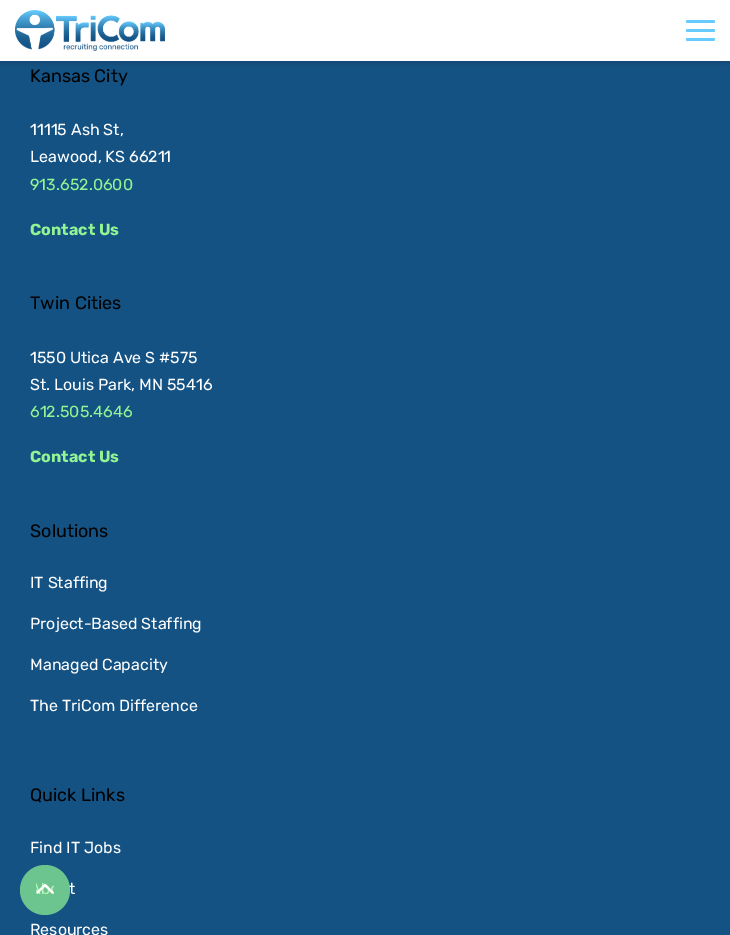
%!PS
<< /PageSize [730 935] /PageUsesTransparency true >> setpagedevice
/rgb { 3 { 255 div 3 1 roll } repeat setrgbcolor } def
/font { [ exch dup neg 0 0 3 -1 roll 0 0 ] selectfont } def
/alpha { dup .setfillconstantalpha .setstrokeconstantalpha } def
/circle { newpath 0 360 arc closepath } def
/roundrect { 5 dict begin { /r /h /w /y /x } { exch def } forall
  x r add y moveto x w add y 2 copy h add r arct x w add y h add x 1 index r arct
  x y h add x y r arct x y 2 copy exch w add exch r arct closepath end } def
/shadow { 12 dict begin { /a /b /q /h /w /y /x } { exch def } forall gsave /was 0 def
  9 -2 -9 { dup b mul 4 div /e exch def 1 sub .425 mul 2.718 exch exp 1 add a .99 .min exch div /now exch def
    1 1 now sub 1 was sub div sub alpha /was now def
    w h .min e 2 mul add 0 gt { x e sub y e sub w e 2 mul add h e 2 mul add
      q e add b .6 mul add w h .min 2 div e add .min 0 .max roundrect fill } if } for grestore end } def
/picture { 5 dict begin { /h /w /y /x /name } { exch def } forall
  gsave x y translate w h scale
  w h 8 [w 0 0 h 0 0] name (r) file false 3 colorimage grestore end } def
0 .pushpdf14devicefilter
0 935 translate 1 -1 scale
4 setmiterlimit
20 82 132 rgb
0 0 730 935 rectfill
0 0 0 rgb
-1 1 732 63 0 1.5 0.1 shadow
255 255 255 rgb
0 0 730 61 rectfill
(img/1.rgb) 15 10 150 41 picture
102 204 255 rgb
686 20 29 3 1.5 roundrect fill
686 29 29 3 1.5 roundrect fill
686 38 29 3 1.5 roundrect fill
/Rubik-Regular 18 font
0 0 0 rgb
30 82 moveto (Kansas City) show
/Rubik-Regular 16 font
255 255 255 rgb
30 135 moveto (11115 Ash St,) show
30 162 moveto (Leawood, KS 66211) show
146 244 146 rgb
30 190 moveto (913.652.0600) show
/Rubik-Bold 16 font
30 235 moveto (Contact Us) show
/Rubik-Regular 18 font
0 0 0 rgb
30 309 moveto (Twin Cities) show
/Rubik-Regular 16 font
255 255 255 rgb
30 363 moveto (1550 Utica Ave S #575) show
30 390 moveto (St. Louis Park, MN 55416) show
146 244 146 rgb
30 417 moveto (612.505.4646) show
/Rubik-Bold 16 font
30 462 moveto (Contact Us) show
/Rubik-Regular 18 font
0 0 0 rgb
30 537 moveto (Solutions) show
/Rubik-Regular 16 font
255 255 255 rgb
[
  [(IT Staffing) 30 588]
  [(Project-Based Staffing) 30 629]
  [(Managed Capacity) 30 670]
  [(The TriCom Difference) 30 711]
] { aload pop moveto show } forall
/Rubik-Regular 18 font
0 0 0 rgb
30 801 moveto (Quick Links) show
/Rubik-Regular 16 font
255 255 255 rgb
[
  [(Find IT Jobs) 30 853]
  [(t) 69 894]
  [(Resources) 30 935]
] { aload pop moveto show } forall
0.7 alpha
146 244 146 rgb
45 890 25 circle fill
1 alpha
(img/2.rgb) 36 883 18 11 picture
.poppdf14devicefilter showpage
